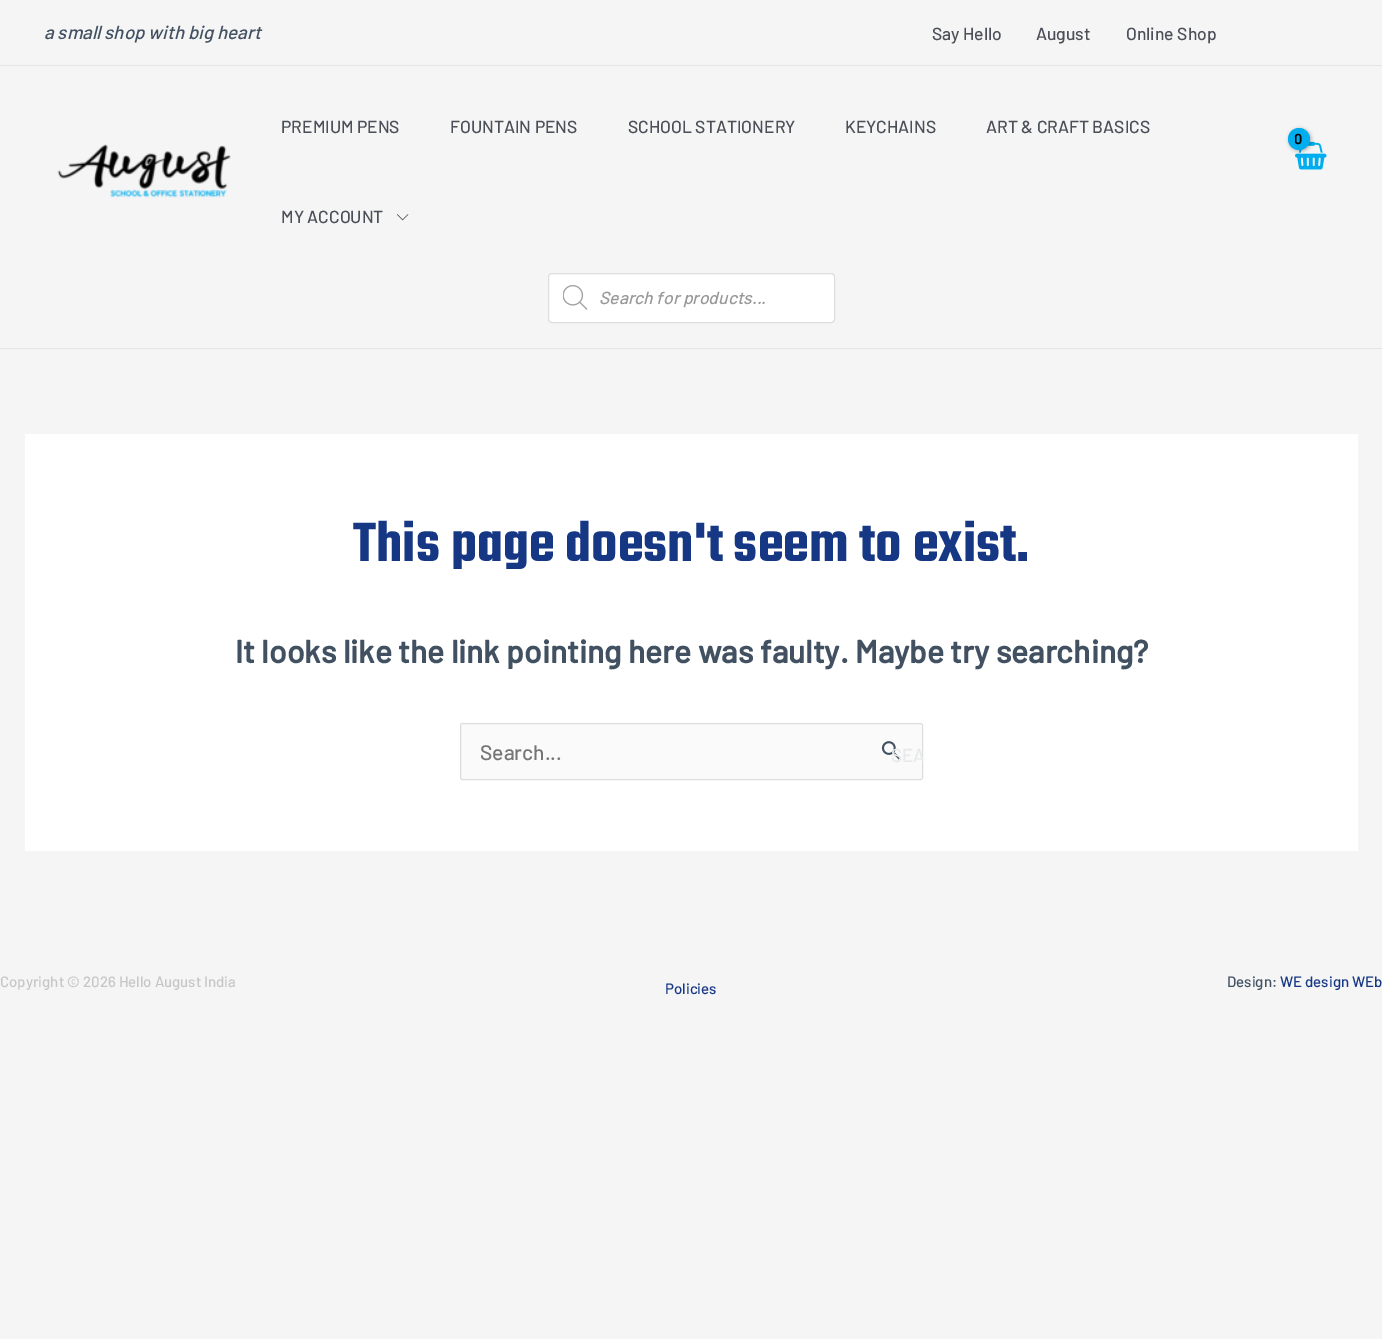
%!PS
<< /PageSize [1382 1339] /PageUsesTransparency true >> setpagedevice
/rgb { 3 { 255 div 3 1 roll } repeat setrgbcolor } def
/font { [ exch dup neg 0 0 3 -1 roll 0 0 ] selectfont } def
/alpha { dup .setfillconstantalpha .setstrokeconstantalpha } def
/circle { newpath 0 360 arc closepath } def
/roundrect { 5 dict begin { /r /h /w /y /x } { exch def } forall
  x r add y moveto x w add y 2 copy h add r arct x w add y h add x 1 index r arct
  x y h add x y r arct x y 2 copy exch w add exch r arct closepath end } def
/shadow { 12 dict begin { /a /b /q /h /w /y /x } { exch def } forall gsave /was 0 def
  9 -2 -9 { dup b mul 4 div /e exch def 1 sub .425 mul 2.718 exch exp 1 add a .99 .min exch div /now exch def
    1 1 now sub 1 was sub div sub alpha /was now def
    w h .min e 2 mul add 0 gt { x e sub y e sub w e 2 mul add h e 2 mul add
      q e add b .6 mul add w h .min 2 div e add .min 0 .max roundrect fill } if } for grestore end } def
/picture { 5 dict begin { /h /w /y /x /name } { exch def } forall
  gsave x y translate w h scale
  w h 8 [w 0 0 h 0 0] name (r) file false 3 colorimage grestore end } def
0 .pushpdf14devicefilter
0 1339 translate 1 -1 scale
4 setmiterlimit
245 245 245 rgb
0 0 1382 1339 rectfill
229 229 229 rgb
0 65 1382 1 rectfill
(img/1.rgb) 57 144 174 54 picture
(img/2.rgb) 396 214 13 7 picture
(img/3.rgb) 1295 141 32 29 picture
0 0 0 rgb
1289 129 22 22 11 2 0.3 shadow
0 174 239 rgb
1299 139 11 circle fill
229 229 229 rgb
0 348 1382 1 rectfill
255 255 255 rgb
548.5 273.5 286 49 3.5 roundrect gsave fill grestore
221 221 221 rgb
stroke
(img/4.rgb) 563 285 25 25 picture
255 255 255 rgb
25 434 1333 417 rectfill
250 250 250 rgb
460.5 723.5 462 56 2 roundrect gsave fill grestore
221 221 221 rgb
stroke
(img/5.rgb) 881 741 20 19 picture
/Barlow-MediumItalic 18.75 font
65 81 97 rgb
44 39 moveto (a small shop with big heart) show
/Barlow-Medium 17.5 font
75 79 88 rgb
[
  [(Say Hello) 932 40]
  [(August) 1036 40]
  [(Online Shop) 1126 40]
  [(PREMIUM PENS) 281 133]
  [(FOUNTAIN PENS) 450 133]
  [(SCHOOL STATIONERY) 628 133]
  [(KEYCHAINS) 845 133]
  [(ART & CRAFT BASICS) 986 133]
  [(MY ACCOUNT) 281 223]
] { aload pop moveto show } forall
/Barlow-Bold 14 font
0 0 0 rgb
1294 144 moveto -1 0 (0) ashow
/Barlow-MediumItalic 17.5 font
153 153 153 rgb
599 304 moveto (Search for products...) show
/Teko-SemiBold 60 font
22 55 132 rgb
353 561 moveto (This page doesn't seem to exist.) show
/Barlow-Bold 31.9 font
65 81 97 rgb
235 663 moveto (It looks like the link pointing here was faulty. Maybe try searching?) show
/Barlow-Medium 21 font
117 117 117 rgb
480 760 moveto (Search...) show
gsave
866 723 57 67 2.5 roundrect clip newpath
/Barlow-Medium 18.75 font
230 232 233 rgb
891 762 moveto (SEA) show
grestore
/Barlow-Medium 15 font
198 198 198 rgb
0 987 moveto (Copyright © 2026 Hello August India) show
22 55 132 rgb
665 994 moveto (Policies) show
65 81 97 rgb
1227 987 moveto (Design:) show
22 55 132 rgb
1280 987 moveto (WE design WEb) show
.poppdf14devicefilter showpage
